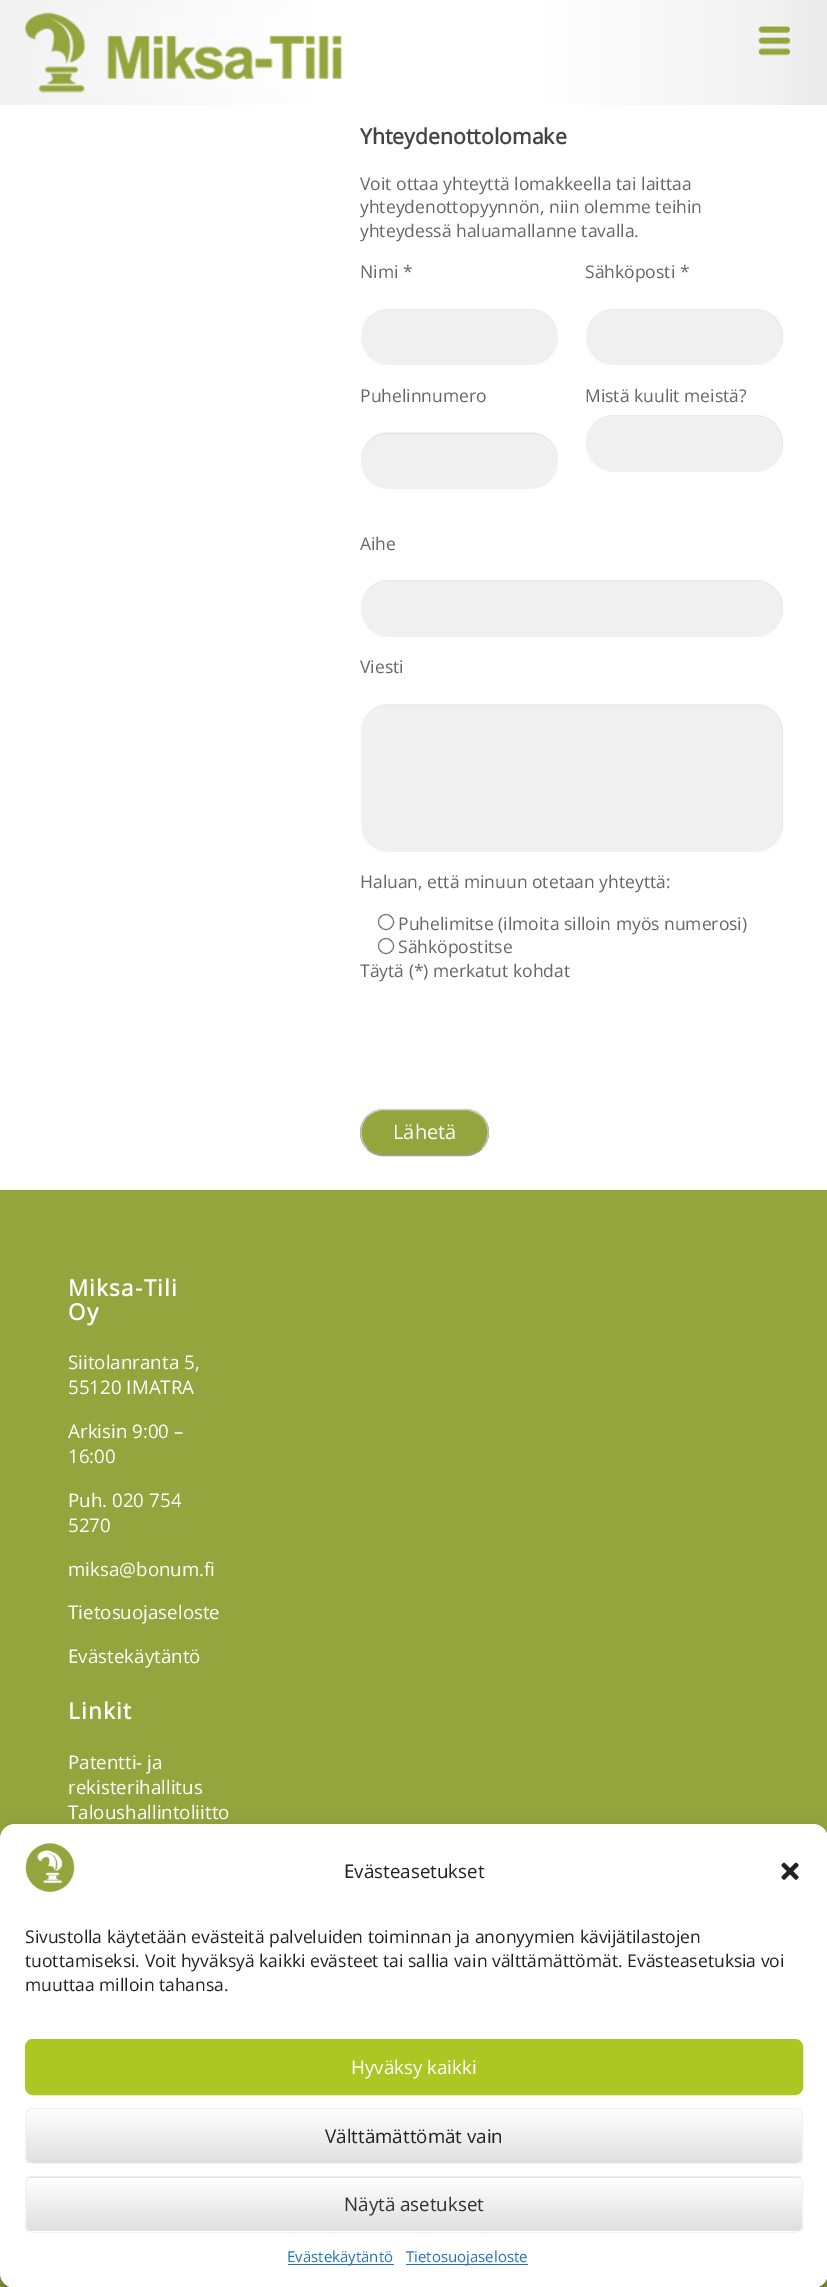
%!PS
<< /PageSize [827 2287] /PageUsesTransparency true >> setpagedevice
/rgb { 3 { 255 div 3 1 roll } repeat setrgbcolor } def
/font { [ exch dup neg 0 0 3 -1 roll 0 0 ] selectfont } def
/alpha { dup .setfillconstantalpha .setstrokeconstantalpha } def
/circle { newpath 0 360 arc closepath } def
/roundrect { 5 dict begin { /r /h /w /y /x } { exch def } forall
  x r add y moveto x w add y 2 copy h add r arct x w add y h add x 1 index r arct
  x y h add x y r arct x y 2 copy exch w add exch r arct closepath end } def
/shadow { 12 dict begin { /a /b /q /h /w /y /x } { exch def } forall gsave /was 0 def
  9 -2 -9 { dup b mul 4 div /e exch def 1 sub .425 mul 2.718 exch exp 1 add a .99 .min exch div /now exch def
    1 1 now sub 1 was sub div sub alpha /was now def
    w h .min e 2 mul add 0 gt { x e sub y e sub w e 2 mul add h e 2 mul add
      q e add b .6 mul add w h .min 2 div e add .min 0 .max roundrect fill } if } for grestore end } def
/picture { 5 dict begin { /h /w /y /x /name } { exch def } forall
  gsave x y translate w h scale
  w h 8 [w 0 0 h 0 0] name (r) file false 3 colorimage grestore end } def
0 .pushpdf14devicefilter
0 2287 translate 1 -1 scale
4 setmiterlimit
255 255 255 rgb
0 0 827 2287 rectfill
gsave 0 0 moveto 827 0 lineto 827 105 lineto 0 105 lineto closepath clip newpath
<< /ShadingType 2 /ColorSpace /DeviceRGB /Coords [0 53 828 52] /Extend [true true] /Function << /FunctionType 3 /Domain [0 1] /Functions [<< /FunctionType 2 /Domain [0 1] /C0 [0.949 0.949 0.949] /C1 [1 1 1] /N 1 >> << /FunctionType 2 /Domain [0 1] /C0 [1 1 1] /C1 [1 1 1] /N 1 >> << /FunctionType 2 /Domain [0 1] /C0 [1 1 1] /C1 [0.949 0.949 0.949] /N 1 >> << /FunctionType 2 /Domain [0 1] /C0 [0.949 0.949 0.949] /C1 [0.918 0.918 0.918] /N 1 >> << /FunctionType 2 /Domain [0 1] /C0 [0.918 0.918 0.918] /C1 [0.918 0.918 0.918] /N 1 >>] /Bounds [0.39 0.65 0.93 0.99] /Encode [0 1 0 1 0 1 0 1 0 1] >> >> shfill grestore
(img/1.rgb) 25 12 317 81 picture
(img/2.rgb) 758 26 32 30 picture
240 240 240 rgb
360 308 199 58 28 roundrect fill
228 228 228 rgb
388 310 moveto 531 310 lineto 546 310 558 322 558 336 curveto 558 335 lineto 558 321 546 309 532 309 curveto 387 309 lineto 373 309 361 321 361 335 curveto 361 336 lineto 361 322 373 310 388 310 curveto closepath fill
255 255 255 rgb
360.5 308.5 198 57 27.5 roundrect stroke
240 240 240 rgb
360 431 199 59 28 roundrect fill
228 228 228 rgb
388 434 moveto 531 434 lineto 546 434 558 446 558 460 curveto 558 459 lineto 558 445 546 433 532 433 curveto 387 433 lineto 373 433 361 445 361 459 curveto 361 460 lineto 361 446 373 434 388 434 curveto closepath fill
255 255 255 rgb
360.5 431.5 198 58 27.5 roundrect stroke
240 240 240 rgb
585 308 199 58 28 roundrect fill
228 228 228 rgb
612 310 moveto 756 310 lineto 771 310 782 322 782 336 curveto 782 340 lineto 782 346 780 352 776 357 curveto 780 352 783 346 783 339 curveto 783 335 lineto 783 321 771 309 757 309 curveto 612 309 lineto 598 309 586 321 586 335 curveto 586 336 lineto 586 322 598 310 612 310 curveto closepath fill
255 255 255 rgb
585.5 308.5 198 57 27.5 roundrect stroke
240 240 240 rgb
585 414 199 59 28 roundrect fill
228 228 228 rgb
612 416 moveto 756 416 lineto 771 416 782 428 782 442 curveto 782 446 lineto 782 451 781 456 778 460 curveto 781 456 783 451 783 445 curveto 783 441 lineto 783 427 771 415 757 415 curveto 612 415 lineto 598 415 586 427 586 441 curveto 586 442 lineto 586 428 598 416 612 416 curveto closepath fill
255 255 255 rgb
585.5 414.5 198 58 27.5 roundrect stroke
240 240 240 rgb
360 579 424 59 28 roundrect fill
228 228 228 rgb
388 581 moveto 756 581 lineto 771 581 782 593 782 608 curveto 782 611 lineto 782 616 781 620 779 624 curveto 782 620 783 615 783 610 curveto 783 606 lineto 783 592 771 580 757 580 curveto 387 580 lineto 373 580 361 592 361 606 curveto 361 608 lineto 361 593 373 581 388 581 curveto closepath fill
255 255 255 rgb
360.5 579.5 423 58 27.5 roundrect stroke
240 240 240 rgb
360 703 424 150 28 roundrect fill
228 228 228 rgb
388 705 moveto 756 705 lineto 771 705 782 717 782 731 curveto 782 826 lineto 782 831 781 836 778 840 curveto 781 836 783 831 783 825 curveto 783 730 lineto 783 716 771 704 757 704 curveto 387 704 lineto 373 704 361 716 361 730 curveto 361 731 lineto 361 717 373 705 388 705 curveto closepath fill
255 255 255 rgb
360.5 703.5 423 149 27.5 roundrect stroke
118 118 118 rgb
386 922 7.5 circle stroke
386 946 7.5 circle stroke
148 165 61 rgb
360 1109 129 47 23.5 roundrect fill
210 210 210 rgb
1.2 setlinewidth
367.5 1116 moveto 371.5 1112 377.5 1109.5 384 1109.5 curveto 465 1109.5 lineto 471 1109.5 477 1112 481.5 1116 curveto stroke
195 195 195 rgb
481.5 1116 moveto 490.5 1125 490.5 1140 481.5 1149 curveto stroke
159 159 159 rgb
481.5 1149 moveto 477 1153 471 1155.5 465 1155.5 curveto 384 1155.5 lineto 377.5 1155.5 371.5 1153 367.5 1149 curveto stroke
195 195 195 rgb
367.5 1149 moveto 358.5 1140 358.5 1125 367.5 1116 curveto stroke
148 165 61 rgb
0 1190 827 1097 rectfill
0 0 0 rgb
0 1831 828 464 15 4 0.23 shadow
0 1836 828 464 15 12.5 0.19 shadow
255 255 255 rgb
0 1824 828 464 15 roundrect fill
(img/3.rgb) 25 1843 50 49 picture
(img/4.rgb) 781 1862 18 18 picture
172 198 36 rgb
25.5 2039.5 777 55 7.5 roundrect gsave fill grestore
1 setlinewidth
stroke
gsave
25 2108 778 56 8 roundrect clip newpath
gsave 25 2109 moveto 803 2109 lineto 803 2163 lineto 25 2163 lineto closepath clip newpath
<< /ShadingType 2 /ColorSpace /DeviceRGB /Coords [26 2163 26 2109] /Extend [true true] /Function << /FunctionType 2 /Domain [0 1] /C0 [0.875 0.875 0.875] /C1 [1 1 1] /N 1 >> >> shfill grestore
grestore
242 242 242 rgb
25.5 2108.5 777 55 7.5 roundrect stroke
gsave
25 2176 778 57 8 roundrect clip newpath
gsave 25 2176 moveto 803 2176 lineto 803 2178 lineto 25 2178 lineto closepath clip newpath
<< /ShadingType 2 /ColorSpace /DeviceRGB /Coords [26 2178 26 2124] /Extend [true true] /Function << /FunctionType 2 /Domain [0 1] /C0 [0.875 0.875 0.875] /C1 [1 1 1] /N 1 >> >> shfill grestore
gsave 25 2178 moveto 803 2178 lineto 803 2231 lineto 25 2231 lineto closepath clip newpath
<< /ShadingType 2 /ColorSpace /DeviceRGB /Coords [26 2231 26 2178] /Extend [true true] /Function << /FunctionType 2 /Domain [0 1] /C0 [0.875 0.875 0.875] /C1 [1 1 1] /N 1 >> >> shfill grestore
grestore
25.5 2176.5 777 56 7.5 roundrect stroke
30 115 190 rgb
288 2264 106 1 rectfill
406 2264 122 1 rectfill
/OpenSans-Bold 21.25 font
68 68 68 rgb
360 144 moveto (Yhteydenottolomake) show
/OpenSans-Regular 17.5 font
102 102 102 rgb
[
  [(Voit ottaa yhteyttä lomakkeella tai laittaa) 360 190]
  [(yhteydenottopyynnön, niin olemme teihin) 360 213]
  [(yhteydessä haluamallanne tavalla.) 360 237]
  [(Nimi *) 360 278]
  [(Puhelinnumero) 360 402]
  [(Sähköposti *) 585 278]
  [(Mistä kuulit meistä?) 585 402]
  [(Aihe) 360 550]
  [(Viesti) 360 673]
  [(Haluan, että minuun otetaan yhteyttä:) 360 888]
  [(Puhelimitse \(ilmoita silloin myös numerosi\)) 398 930]
  [(Sähköpostitse) 398 953]
  [(Täytä \(*\) merkatut kohdat) 360 977]
] { aload pop moveto show } forall
/OpenSans-Regular 20 font
255 255 255 rgb
393 1139 moveto (Lähetä) show
/OpenSans-Bold 22.5 font
68 1296 moveto 1.25 0 (Miksa-Tili) ashow
68 1320 moveto 1.25 0 (Oy) ashow
/OpenSans-Regular 18.75 font
[
  [(Siitolanranta 5,) 68 1369]
  [(55120 IMATRA) 68 1394]
  [(Arkisin 9:00 –) 68 1438]
  [(16:00) 68 1463]
  [(Puh. 020 754) 68 1507]
  [(5270) 68 1532]
  [(miksa@bonum.fi) 68 1576]
  [(Tietosuojaseloste) 68 1619]
  [(Evästekäytäntö) 68 1663]
] { aload pop moveto show } forall
/OpenSans-Bold 22.5 font
68 1719 moveto 1.25 0 (Linkit) ashow
/OpenSans-Regular 18.75 font
[
  [(Patentti- ja) 68 1769]
  [(rekisterihallitus) 68 1794]
  [(Taloushallintoliitto) 68 1819]
] { aload pop moveto show } forall
34 34 34 rgb
344 1878 moveto (Evästeasetukset) show
/OpenSans-Regular 17.5 font
[
  [(Sivustolla käytetään evästeitä palveluiden toiminnan ja anonyymien kävijätilastojen) 25 1943]
  [(tuottamiseksi. Voit hyväksyä kaikki evästeet tai sallia vain välttämättömät. Evästeasetuksia voi) 25 1967]
  [(muuttaa milloin tahansa.) 25 1991]
] { aload pop moveto show } forall
/OpenSans-Regular 18.75 font
255 255 255 rgb
351 2074 moveto (Hyväksy kaikki) show
34 34 34 rgb
325 2143 moveto (Välttämättömät vain) show
51 51 51 rgb
344 2211 moveto (Näytä asetukset) show
/OpenSans-Regular 15 font
30 115 190 rgb
287 2262 moveto (Evästekäytäntö) show
406 2262 moveto (Tietosuojaseloste) show
.poppdf14devicefilter showpage
